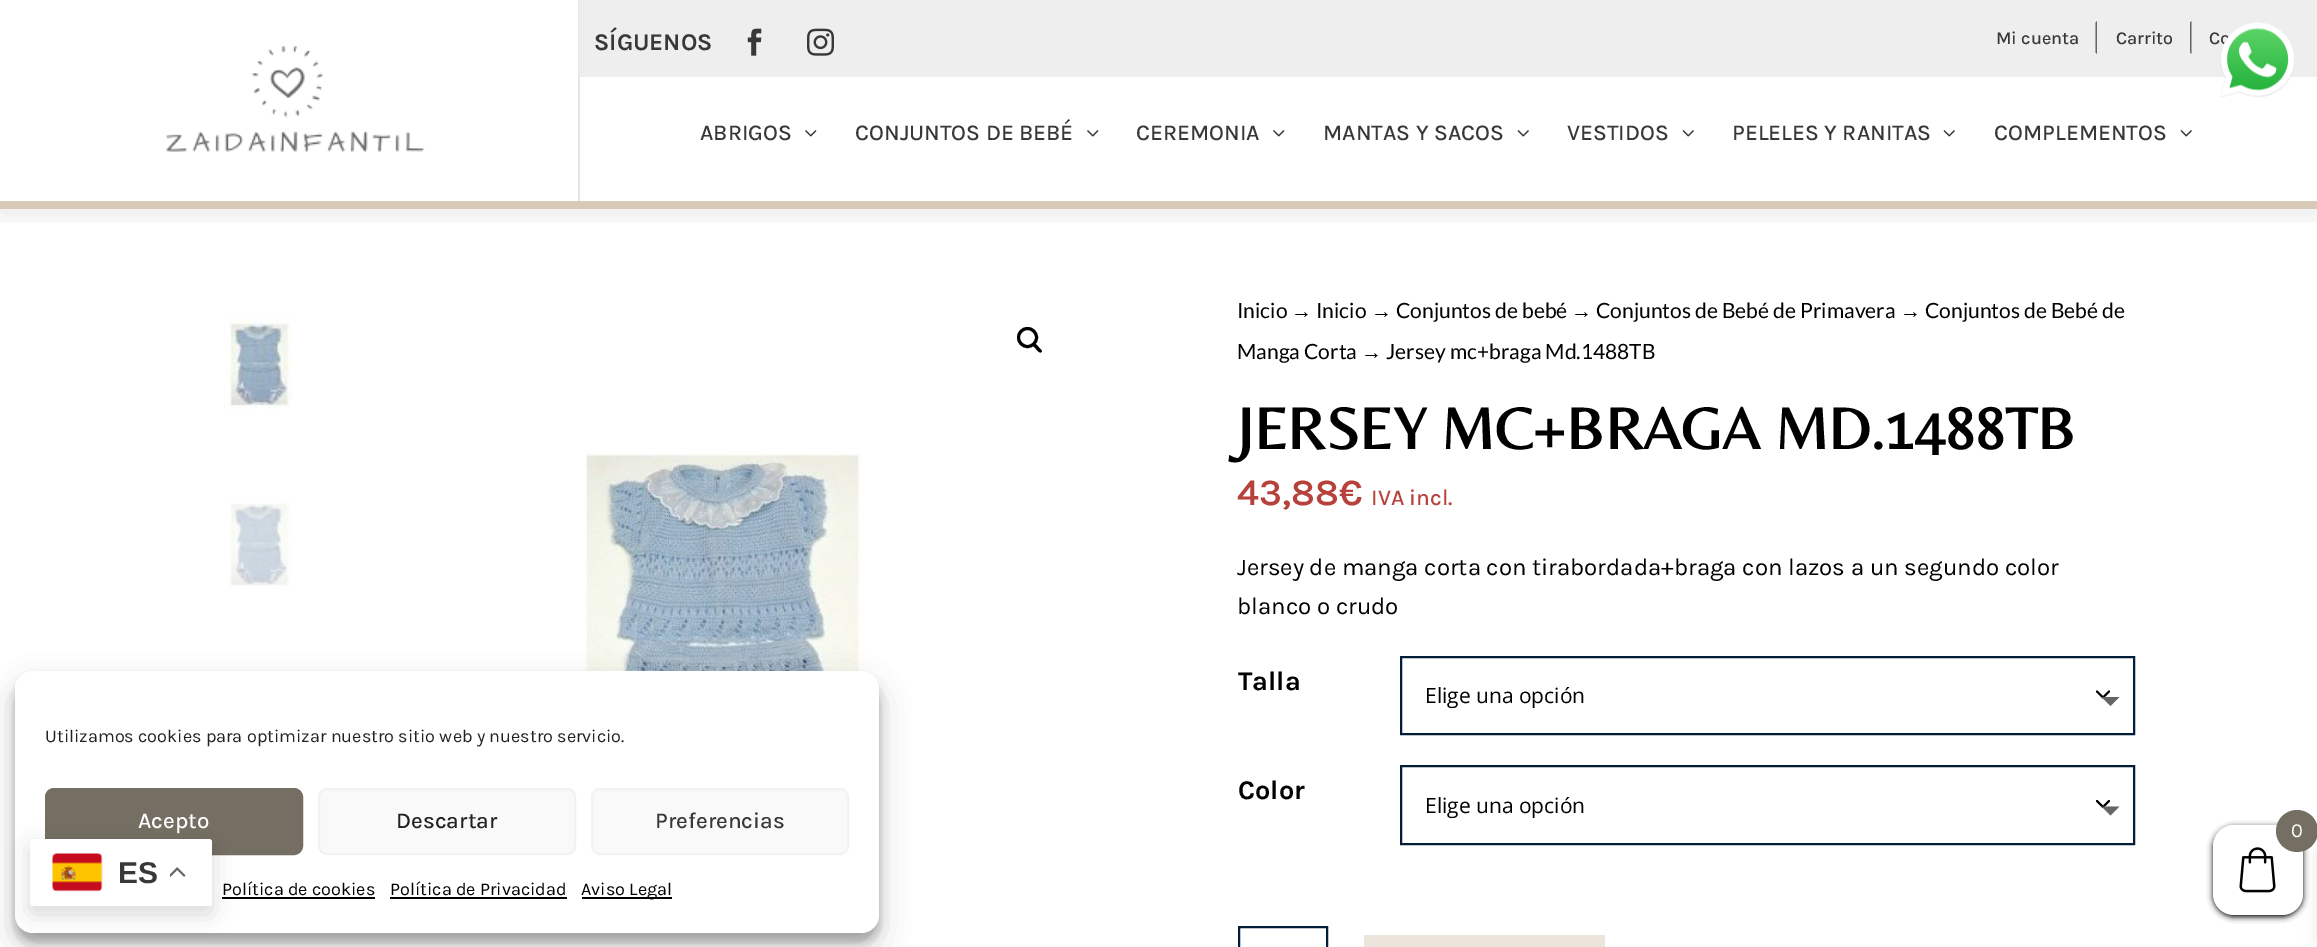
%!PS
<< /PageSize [2317 947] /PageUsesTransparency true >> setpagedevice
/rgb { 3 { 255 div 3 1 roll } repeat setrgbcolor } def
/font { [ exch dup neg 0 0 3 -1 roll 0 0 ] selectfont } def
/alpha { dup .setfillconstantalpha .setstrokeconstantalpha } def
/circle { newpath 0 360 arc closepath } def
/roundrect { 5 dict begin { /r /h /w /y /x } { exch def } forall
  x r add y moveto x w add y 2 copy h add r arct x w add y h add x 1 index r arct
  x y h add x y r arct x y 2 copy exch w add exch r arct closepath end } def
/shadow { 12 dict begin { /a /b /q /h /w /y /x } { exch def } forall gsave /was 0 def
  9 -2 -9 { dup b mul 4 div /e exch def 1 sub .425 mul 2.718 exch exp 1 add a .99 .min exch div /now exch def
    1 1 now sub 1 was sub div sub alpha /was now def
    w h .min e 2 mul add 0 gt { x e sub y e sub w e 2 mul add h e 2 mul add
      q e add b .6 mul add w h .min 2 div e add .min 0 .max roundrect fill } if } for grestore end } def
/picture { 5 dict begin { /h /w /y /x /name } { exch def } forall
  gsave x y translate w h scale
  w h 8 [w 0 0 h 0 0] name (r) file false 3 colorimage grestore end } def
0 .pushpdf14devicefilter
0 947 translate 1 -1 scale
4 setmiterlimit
255 255 255 rgb
0 0 2317 947 rectfill
(img/8.rgb) 584 452 278 220 picture
0 0 0 rgb
15 680 864 262 18 4.5 0.23 shadow
15 686 864 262 18 15 0.19 shadow
255 255 255 rgb
15 671 864 262 18 roundrect fill
117 110 99 rgb
46 789 256 65 8 roundrect gsave fill grestore
2 setlinewidth
stroke
249 249 249 rgb
319 789 256 65 8 roundrect gsave fill grestore
242 242 242 rgb
stroke
249 249 249 rgb
592 789 256 65 8 roundrect gsave fill grestore
242 242 242 rgb
stroke
[
  [222 897 153 2 0 0 0]
  [390 897 177 2 0 0 0]
  [582 897 90 2 0 0 0]
] { aload pop rgb rectfill } forall
gsave
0 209 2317 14 rectclip
0 3 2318 209 0 13.5 0.1 shadow
grestore
215 203 183 rgb
0 201 2317 8 rectfill
230 230 230 rgb
578 0 2 201 rectfill
(img/1.rgb) 166 45 259 107 picture
238 238 238 rgb
579 0 1738 77 rectfill
(img/2.rgb) 747 28 15 28 picture
(img/3.rgb) 807 28 27 28 picture
102 102 102 rgb
2097 21 moveto 2097 54 lineto 2095.5 52.5 lineto 2095.5 22.5 lineto closepath fill
2191.5 21 moveto 2191.5 54 lineto 2190 52.5 lineto 2190 22.5 lineto closepath fill
(img/4.rgb) 805 130 12 7 picture
(img/4.rgb) 1087 130 12 7 picture
(img/4.rgb) 1273 130 12 7 picture
(img/5.rgb) 1517 130 12 7 picture
(img/5.rgb) 1682 130 12 7 picture
(img/5.rgb) 1943 130 12 7 picture
(img/5.rgb) 2180 130 12 7 picture
(img/6.rgb) 224 314 69 95 picture
(img/7.rgb) 228 497 64 92 picture
0 0 0 rgb
3 setlinewidth
1027.5 337.5 9 circle stroke
1033 344 moveto 1034.5 342 1037.5 346 1038.5 347 curveto 1039 348 1043 350.5 1041.5 352 curveto 1040 354 1037 350 1036 349 curveto 1035.5 348 1031.5 345.5 1033 344 curveto closepath fill
2 setlinewidth
1 setlinecap
1 setlinejoin
2097 691.5 moveto 2103 697.5 lineto 2109 691.5 lineto stroke
2 30 57 rgb
0 setlinecap
0 setlinejoin
1401 657 733 77 rectstroke
102 102 102 rgb
2101.5 697 moveto 2119.5 697 lineto 2110.5 706 lineto closepath fill
0 0 0 rgb
1 setlinecap
1 setlinejoin
2097 801 moveto 2103 807 lineto 2109 801 lineto stroke
2 30 57 rgb
0 setlinecap
0 setlinejoin
1401 766 733 78 rectstroke
102 102 102 rgb
2101.5 806.5 moveto 2119.5 806.5 lineto 2110.5 815.5 lineto closepath fill
2 30 57 rgb
1239 927 88 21 rectstroke
235 229 219 rgb
1364 935 241 12 rectfill
0 0 0 rgb
2213 827 90 90 21 3 1 shadow
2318 852 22 89 0 7.5 0.1 shadow
255 255 255 rgb
2213 825 90 90 21 roundrect fill
117 110 99 rgb
2297 831 21 circle fill
(img/10.rgb) 2239 847 37 46 picture
0 0 0 rgb
30 846 182 68 3 11 0.15 shadow
255 255 255 rgb
30 839 182 67 3 roundrect fill
(img/11.rgb) 52 853 51 39 picture
(img/12.rgb) 170 867 16 10 picture
/Karla-Regular 18 font
34 34 34 rgb
45 742 moveto (Utilizamos cookies para optimizar nuestro sitio web y nuestro servicio.) show
/Karla-Medium 22.5 font
255 255 255 rgb
138 828 moveto (Acepto) show
34 34 34 rgb
396 828 moveto (Descartar) show
56 56 56 rgb
655 828 moveto (Preferencias) show
/Karla-Regular 18 font
0 0 0 rgb
[
  [(Política de cookies) 222 895]
  [(Política de Privacidad) 390 895]
  [(Aviso Legal) 581 895]
] { aload pop moveto show } forall
/Karla-Bold 24 font
56 56 56 rgb
594 50 moveto (SÍGUENOS) show
/Karla-Medium 18 font
[
  [(Mi cuenta) 1996 44]
  [(Carrito) 2116 44]
  [(Co) 2209 44]
] { aload pop moveto show } forall
/Karla-Medium 22.5 font
[
  [(ABRIGOS) 700 140]
  [(CONJUNTOS DE BEBÉ) 855 140]
  [(CEREMONIA) 1136 140]
  [(MANTAS Y SACOS) 1323 140]
  [(VESTIDOS) 1567 140]
  [(PELELES Y RANITAS) 1732 140]
  [(COMPLEMENTOS) 1994 140]
] { aload pop moveto show } forall
/Lato-Regular 21 font
0 0 0 rgb
1237 318 moveto (Inicio) show
/LiberationSans-Regular 21 font
1291 318 moveto (→) show
/Lato-Regular 21 font
1316 318 moveto (Inicio) show
/LiberationSans-Regular 21 font
1371 318 moveto (→) show
/Lato-Regular 21 font
1396 318 moveto (Conjuntos de bebé) show
/LiberationSans-Regular 21 font
1571 318 moveto (→) show
/Lato-Regular 21 font
1596 318 moveto (Conjuntos de Bebé de Primavera) show
/LiberationSans-Regular 21 font
1900 318 moveto (→) show
/Lato-Regular 21 font
1925 318 moveto (Conjuntos de Bebé de) show
1237 359 moveto (Manga Corta) show
/LiberationSans-Regular 21 font
1361 359 moveto (→) show
/Lato-Regular 21 font
1386 359 moveto (Jersey mc+braga Md.1488TB) show
/Belleza-Bold 60 font
1237 449 moveto (JERSEY MC+BRAGA MD.1488TB) show
/Karla-SemiBold 37.5 font
183 66 60 rgb
1237 505 moveto (43,88€) show
/Karla-Medium 22.5 font
1371 505 moveto (IVA incl.) show
/Karla-Regular 24 font
0 0 0 rgb
1237 575 moveto (Jersey de manga corta con tirabordada+braga con lazos a un segundo color) show
1237 614 moveto (blanco o crudo) show
/Karla-Bold 27 font
1238 690 moveto (Talla) show
/OpenSans-Regular 21 font
1425 703 moveto (Elige una opción) show
/Karla-Bold 27 font
1238 799 moveto (Color) show
/OpenSans-Regular 21 font
1425 813 moveto (Elige una opción) show
(img/9.rgb) 2220 22 75 76 picture
/Karla-Regular 20 font
255 255 255 rgb
2291 837 moveto (0) show
/LiberationSans-Bold 30 font
56 56 56 rgb
118 883 moveto (ES) show
.poppdf14devicefilter showpage
